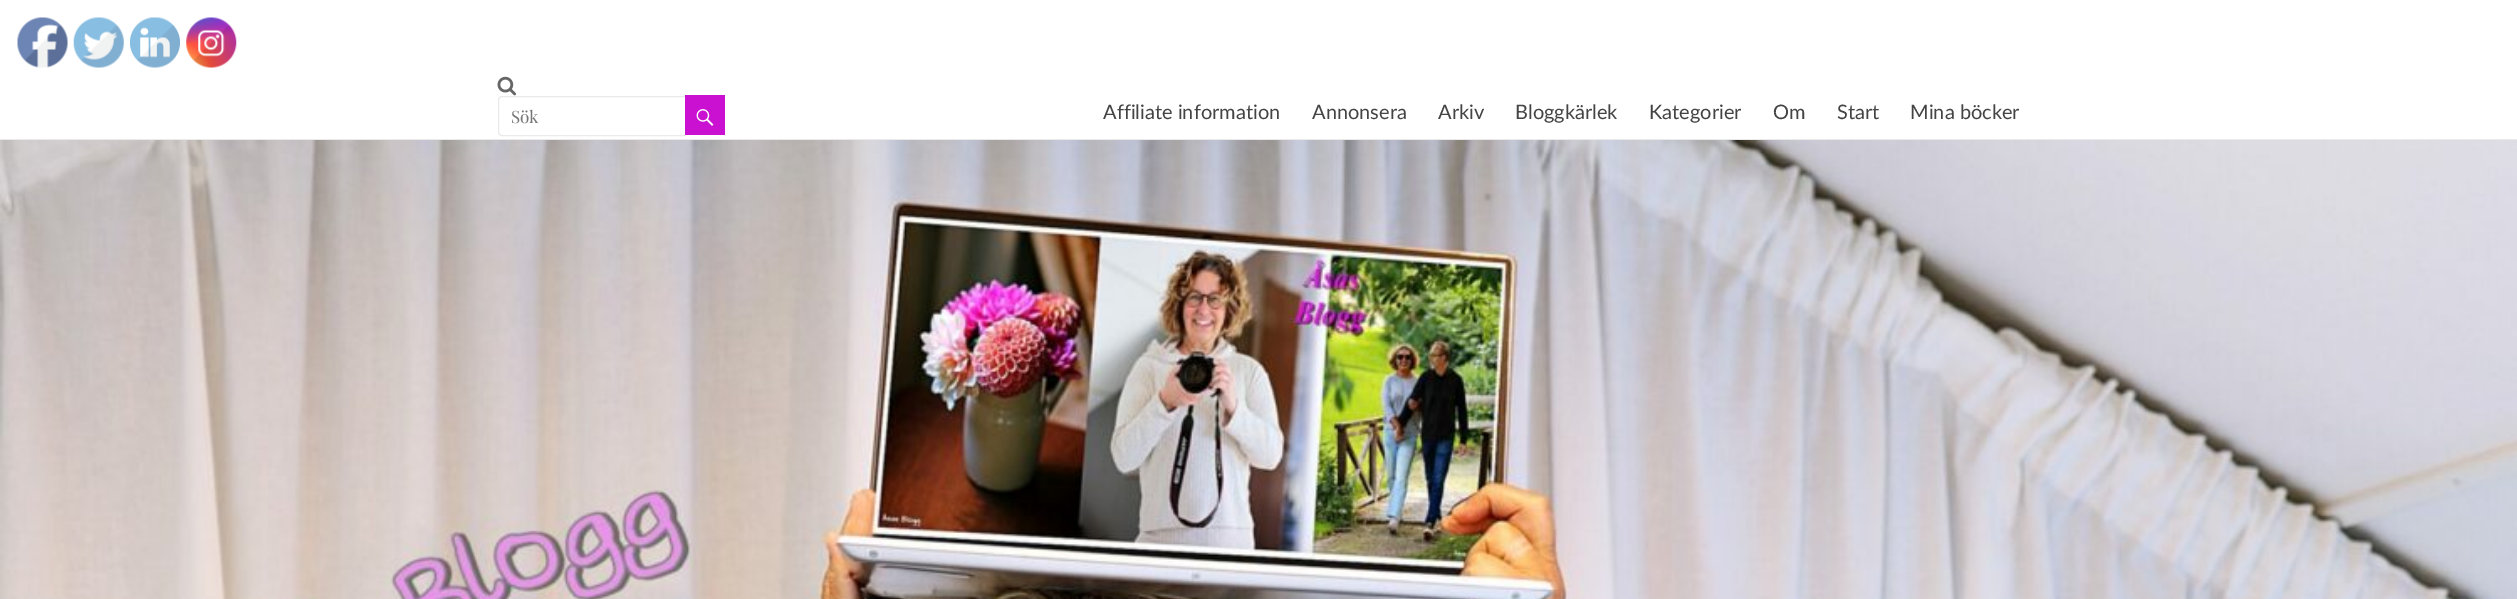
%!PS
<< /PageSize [2517 599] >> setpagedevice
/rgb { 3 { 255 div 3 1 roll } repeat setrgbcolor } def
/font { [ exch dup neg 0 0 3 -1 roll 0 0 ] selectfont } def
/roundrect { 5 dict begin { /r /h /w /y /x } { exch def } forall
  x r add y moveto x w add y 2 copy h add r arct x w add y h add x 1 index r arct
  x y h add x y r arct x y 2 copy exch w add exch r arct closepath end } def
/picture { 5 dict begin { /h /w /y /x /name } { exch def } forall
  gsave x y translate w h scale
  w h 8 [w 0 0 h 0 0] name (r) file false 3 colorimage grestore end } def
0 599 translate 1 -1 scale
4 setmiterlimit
255 255 255 rgb
0 0 2517 599 rectfill
(img/1.rgb) 17 17 51 51 picture
(img/2.rgb) 73 17 51 51 picture
(img/3.rgb) 130 17 50 51 picture
(img/4.rgb) 186 17 51 51 picture
234 234 234 rgb
0 139 2517 1 rectfill
(img/5.rgb) 497 76 19 20 picture
498.5 96.5 189 39 3.5 roundrect stroke
202 16 209 rgb
685 95 40 40 rectfill
(img/6.rgb) 696 109 18 17 picture
(img/7.rgb) 0 140 2517 459 picture
/PlayfairDisplay-Regular 17 font
117 117 117 rgb
511 123 moveto (Sök) show
/Lato-Regular 20 font
68 68 68 rgb
[
  [(Affiliate information) 1103 119]
  [(Annonsera) 1312 119]
  [(Arkiv) 1438 119]
  [(Bloggkärlek) 1515 119]
  [(Kategorier) 1649 119]
  [(Om) 1773 119]
  [(Start) 1837 119]
  [(Mina böcker) 1910 119]
] { aload pop moveto show } forall
showpage
